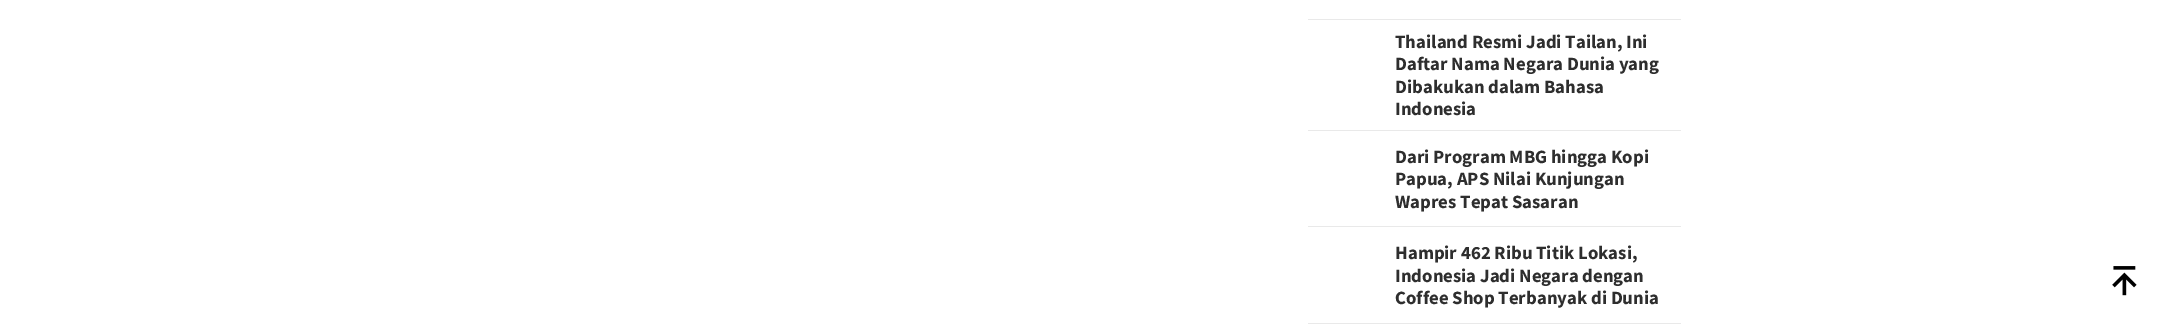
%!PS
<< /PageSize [2171 332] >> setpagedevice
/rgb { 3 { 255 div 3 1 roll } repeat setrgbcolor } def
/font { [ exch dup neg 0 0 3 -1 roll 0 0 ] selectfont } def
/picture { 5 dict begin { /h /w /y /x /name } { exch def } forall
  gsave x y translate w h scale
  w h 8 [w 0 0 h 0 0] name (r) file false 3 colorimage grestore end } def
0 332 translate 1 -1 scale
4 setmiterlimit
255 255 255 rgb
0 0 2171 332 rectfill
[
  [1308 19 373 1 233 233 233]
  [1308 130 373 1 233 233 233]
  [1308 226 373 1 233 233 233]
  [1308 323 373 1 233 233 233]
] { aload pop rgb rectfill } forall
(img/1.rgb) 2112 266 25 30 picture
/SourceSansPro-Bold 18.75 font
46 46 46 rgb
[
  [(Thailand Resmi Jadi Tailan, Ini) 1395 48]
  [(Daftar Nama Negara Dunia yang) 1395 70]
  [(Dibakukan dalam Bahasa) 1395 93]
  [(Indonesia) 1395 115]
  [(Dari Program MBG hingga Kopi) 1395 163]
  [(Papua, APS Nilai Kunjungan) 1395 185]
  [(Wapres Tepat Sasaran) 1395 208]
  [(Hampir 462 Ribu Titik Lokasi,) 1395 259]
  [(Indonesia Jadi Negara dengan) 1395 282]
  [(Coffee Shop Terbanyak di Dunia) 1395 304]
] { aload pop moveto show } forall
showpage
